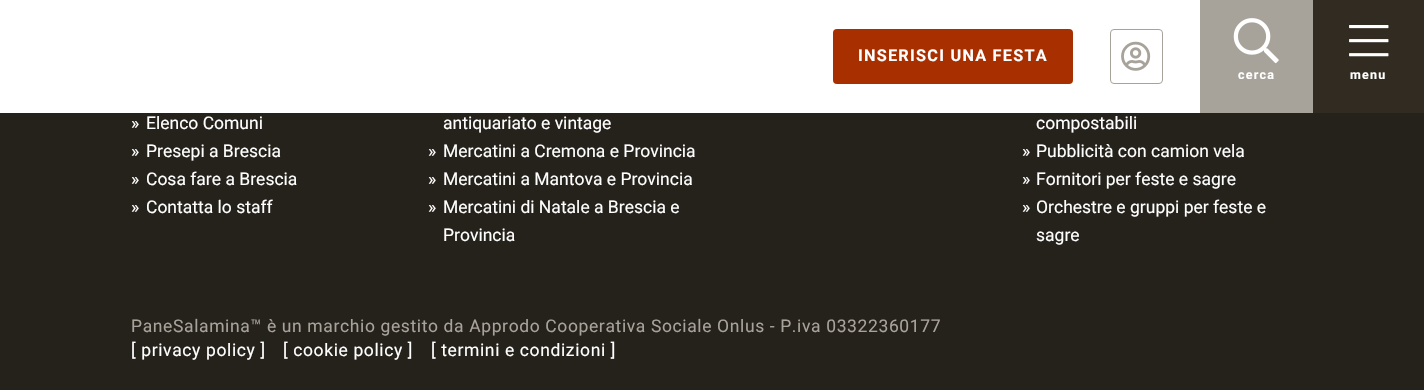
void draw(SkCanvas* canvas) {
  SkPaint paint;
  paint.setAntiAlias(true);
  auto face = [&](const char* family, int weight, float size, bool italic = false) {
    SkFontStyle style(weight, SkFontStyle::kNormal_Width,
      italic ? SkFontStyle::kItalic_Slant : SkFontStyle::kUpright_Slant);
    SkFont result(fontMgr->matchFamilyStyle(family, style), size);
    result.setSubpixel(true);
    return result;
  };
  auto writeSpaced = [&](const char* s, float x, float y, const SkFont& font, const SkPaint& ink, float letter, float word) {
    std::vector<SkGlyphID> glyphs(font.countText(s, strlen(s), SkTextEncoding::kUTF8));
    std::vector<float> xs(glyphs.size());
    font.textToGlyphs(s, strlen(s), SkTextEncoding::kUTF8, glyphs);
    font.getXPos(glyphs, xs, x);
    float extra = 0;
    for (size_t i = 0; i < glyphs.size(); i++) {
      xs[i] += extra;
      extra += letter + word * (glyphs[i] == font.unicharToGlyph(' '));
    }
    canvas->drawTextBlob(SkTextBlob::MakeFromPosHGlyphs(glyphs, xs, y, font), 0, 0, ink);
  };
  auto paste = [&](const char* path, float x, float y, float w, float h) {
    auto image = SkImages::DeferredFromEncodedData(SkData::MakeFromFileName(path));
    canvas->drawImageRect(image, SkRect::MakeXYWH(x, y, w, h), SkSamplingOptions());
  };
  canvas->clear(0xff25211b);
  paint.setColor(0xffffffff);
  canvas->drawRect(SkRect::MakeXYWH(0, 0, 1200, 113), paint);
  paint.setColor(0xffa82f00);
  canvas->drawRoundRect(SkRect::MakeXYWH(833, 29, 240, 55), 4, 4, paint);
  paint.setStroke(true);
  paint.setStrokeWidth(1);
  paint.setColor(0xffa7a29a);
  canvas->drawRoundRect(SkRect::MakeXYWH(1110.5f, 29.5f, 52, 54), 3.5f, 3.5f, paint);
  paste("img/1.png", 1121, 41, 30, 30);
  paint.setStroke(false);
  canvas->drawRect(SkRect::MakeXYWH(1200, 0, 113, 113), paint);
  paste("img/2.png", 1233, 18, 46, 46);
  paint.setColor(0xff322b22);
  canvas->drawRect(SkRect::MakeXYWH(1313, 0, 111, 113), paint);
  paste("img/3.png", 1349, 25, 40, 32);
  auto f0 = face("Roboto", 700, 16.25f);
  paint.setColor(0xffffffff);
  writeSpaced("INSERISCI UNA FESTA", 858, 61, f0, paint, 1.25f, 0);
  auto f1 = face("Roboto", 700, 12.5f);
  writeSpaced("cerca", 1238, 79, f1, paint, 1.25f, 0);
  writeSpaced("menu", 1350, 79, f1, paint, 1.25f, 0);
  auto f2 = face("Roboto", 400, 17.5f);
  {
    const struct { const char* s; float x, y; } items[] = {
      {"»", 131, 129},
      {"Elenco Comuni", 146, 129},
      {"»", 131, 157},
      {"Presepi a Brescia", 146, 157},
      {"»", 131, 185},
      {"Cosa fare a Brescia", 146, 185},
      {"»", 131, 213},
      {"Contatta lo staff", 146, 213},
      {"antiquariato e vintage", 443, 129},
      {"»", 428, 157},
      {"Mercatini a Cremona e Provincia", 443, 157},
      {"»", 428, 185},
      {"Mercatini a Mantova e Provincia", 443, 185},
      {"»", 428, 213},
      {"Mercatini di Natale a Brescia e", 443, 213},
      {"Provincia", 443, 241},
      {"compostabili", 1036, 129},
      {"»", 1022, 157},
      {"Pubblicità con camion vela", 1036, 157},
      {"»", 1022, 185},
      {"Fornitori per feste e sagre", 1036, 185},
      {"»", 1022, 213},
      {"Orchestre e gruppi per feste e", 1036, 213},
      {"sagre", 1036, 241},
    };
    for (auto [s, x, y] : items) {
      canvas->drawString(s, x, y, f2, paint);
    }
  }
  paint.setColor(0xffa7a29a);
  writeSpaced("PaneSalamina™ è un marchio gestito da Approdo Cooperativa Sociale Onlus - P.iva 03322360177", 131, 332, f2, paint, 0.62f, 0);
  paint.setColor(0xffffffff);
  {
    const struct { const char* s; float x, y; } items[] = {
      {"[ privacy policy ]", 131, 356},
      {"[ cookie policy ]", 283, 356},
      {"[ termini e condizioni ]", 431, 356},
    };
    for (auto [s, x, y] : items) {
      writeSpaced(s, x, y, f2, paint, 0.62f, 0);
    }
  }
}
